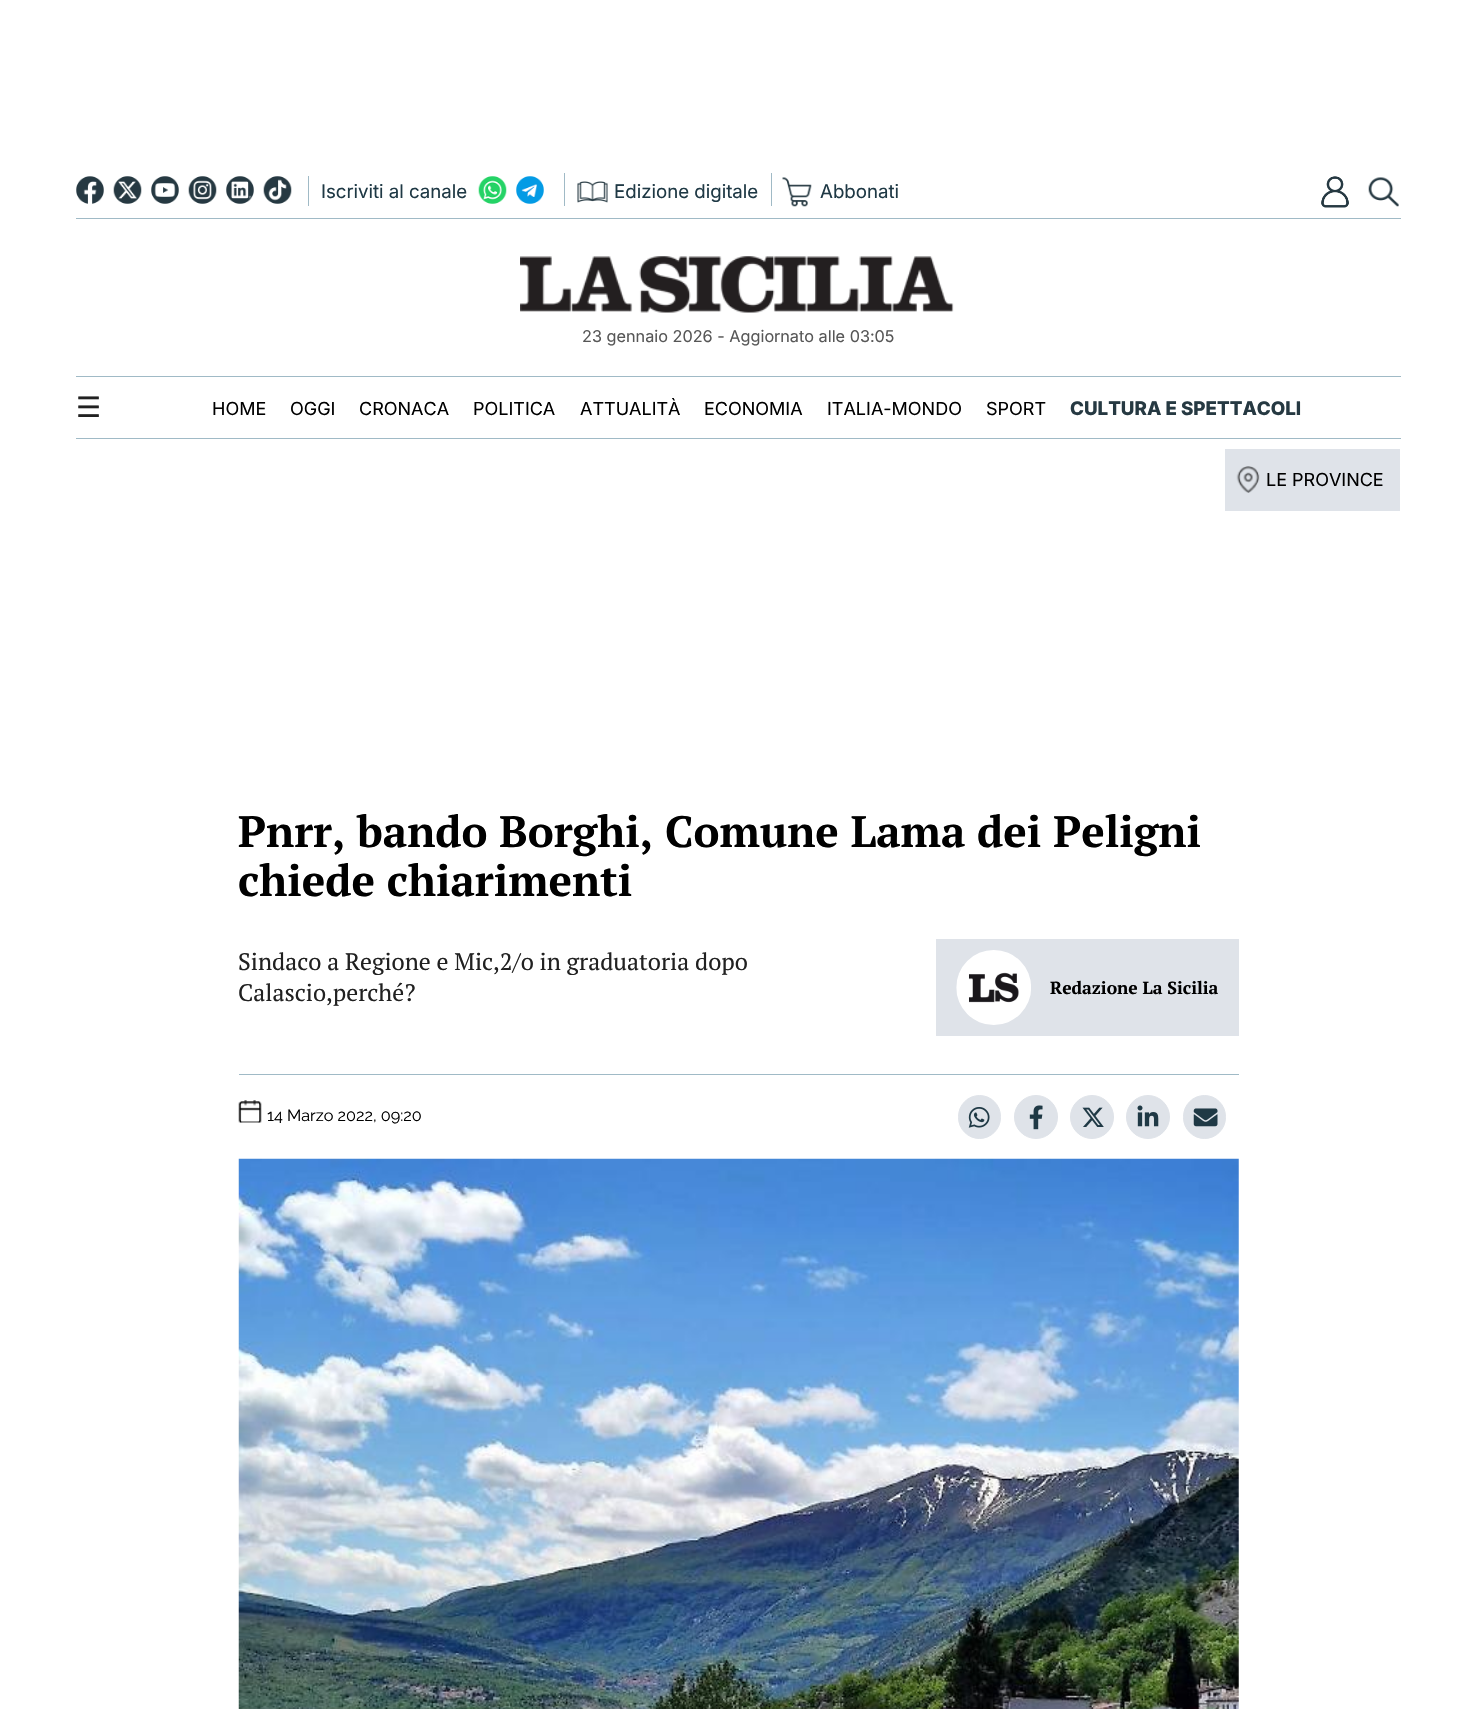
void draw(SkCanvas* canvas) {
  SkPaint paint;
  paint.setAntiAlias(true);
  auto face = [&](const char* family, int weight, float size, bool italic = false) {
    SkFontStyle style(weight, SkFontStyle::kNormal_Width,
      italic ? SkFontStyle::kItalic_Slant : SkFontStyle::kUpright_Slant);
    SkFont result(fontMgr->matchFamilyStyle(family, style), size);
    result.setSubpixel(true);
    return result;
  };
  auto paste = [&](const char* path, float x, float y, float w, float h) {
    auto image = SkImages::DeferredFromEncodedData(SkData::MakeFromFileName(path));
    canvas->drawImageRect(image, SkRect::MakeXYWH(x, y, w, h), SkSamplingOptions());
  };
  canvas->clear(0xffffffff);
  paint.setColor(0xffa0bac6);
  canvas->drawRect(SkRect::MakeXYWH(76, 218, 1325, 1), paint);
  paste("img/1.png", 76, 176, 28, 28);
  paste("img/2.png", 113, 176, 29, 28);
  paste("img/3.png", 151, 176, 28, 28);
  paste("img/4.png", 188, 176, 29, 28);
  paste("img/5.png", 226, 176, 28, 28);
  paste("img/6.png", 263, 176, 29, 28);
  canvas->drawRect(SkRect::MakeXYWH(308, 176, 1, 30), paint);
  paste("img/7.png", 478, 176, 29, 28);
  paste("img/8.png", 516, 176, 28, 28);
  canvas->drawRect(SkRect::MakeXYWH(771, 173, 1, 33), paint);
  canvas->drawRect(SkRect::MakeXYWH(564, 173, 1, 33), paint);
  paste("img/9.png", 577, 181, 31, 22);
  paste("img/10.png", 782, 177, 30, 30);
  paste("img/11.png", 1321, 176, 28, 32);
  paste("img/12.png", 1368, 177, 31, 30);
  paste("img/13.png", 520, 256, 434, 57);
  {
    const struct { float x, y, w, h; SkColor color; } items[] = {
      {76, 376, 1325, 1, 0xffa0bac6},
      {76, 438, 1325, 1, 0xffa0bac6},
      {1225, 449, 175, 62, 0xffdfe3e9},
    };
    for (auto [x, y, w, h, color] : items) {
      paint.setColor(color);
      canvas->drawRect(SkRect::MakeXYWH(x, y, w, h), paint);
    }
  }
  paste("img/14.png", 1236, 466, 24, 27);
  canvas->drawRect(SkRect::MakeXYWH(936, 939, 303, 97), paint);
  paste("img/15.png", 956, 950, 75, 75);
  paint.setColor(0xffa0bac6);
  canvas->drawRect(SkRect::MakeXYWH(239, 1074, 1000, 1), paint);
  paste("img/16.png", 238, 1100, 24, 23);
  paint.setColor(0xffdfe3e9);
  canvas->drawRoundRect(SkRect::MakeXYWH(958.5f, 1095.5f, 42, 43), 21, 21, paint);
  paint.setStroke(true);
  paint.setStrokeWidth(1);
  canvas->drawRoundRect(SkRect::MakeXYWH(958.5f, 1095.5f, 42, 43), 21, 21, paint);
  paste("img/17.png", 968, 1107, 22, 21);
  paint.setStroke(false);
  canvas->drawCircle(1036, 1117, 21.5f, paint);
  paint.setStroke(true);
  canvas->drawCircle(1036, 1117, 21.5f, paint);
  paste("img/18.png", 1029, 1105, 14, 25);
  paint.setStroke(false);
  canvas->drawCircle(1092, 1117, 21.5f, paint);
  paint.setStroke(true);
  canvas->drawCircle(1092, 1117, 21.5f, paint);
  paste("img/19.png", 1082, 1107, 22, 20);
  paint.setStroke(false);
  canvas->drawCircle(1148, 1117, 21.5f, paint);
  paint.setStroke(true);
  canvas->drawCircle(1148, 1117, 21.5f, paint);
  paste("img/20.png", 1137, 1105, 22, 22);
  paint.setStroke(false);
  canvas->drawRoundRect(SkRect::MakeXYWH(1183.5f, 1095.5f, 42, 43), 21, 21, paint);
  paint.setStroke(true);
  canvas->drawRoundRect(SkRect::MakeXYWH(1183.5f, 1095.5f, 42, 43), 21, 21, paint);
  paste("img/21.png", 1193, 1108, 25, 19);
  paste("img/22.png", 238, 1158, 1001, 551);
  auto f0 = face("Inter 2", 400, 18.75f);
  paint.setStroke(false);
  paint.setColor(0xff1f3945);
  {
    const struct { const char* s; float x, y; } items[] = {
      {"Iscriviti al canale", 321, 198},
      {"Edizione digitale", 614, 198},
      {"Abbonati", 820, 198},
    };
    for (auto [s, x, y] : items) {
      canvas->drawString(s, x, y, f0, paint);
    }
  }
  auto f1 = face("Inter", 400, 16.25f);
  paint.setColor(0xff575757);
  canvas->drawString("23 gennaio 2026 - Aggiornato alle 03:05", 582, 342, f1, paint);
  auto f2 = face("DejaVu Sans", 400, 28);
  paint.setColor(0xff212121);
  canvas->drawString("☰", 76, 417, f2, paint);
  auto f3 = face("Inter", 400, 18);
  paint.setColor(0xff000000);
  {
    const struct { const char* s; float x, y; } items[] = {
      {"HOME", 212, 415},
      {"OGGI", 290, 415},
      {"CRONACA", 359, 415},
      {"POLITICA", 473, 415},
      {"ATTUALITÀ", 580, 415},
      {"ECONOMIA", 704, 415},
      {"ITALIA-MONDO", 827, 415},
      {"SPORT", 986, 415},
    };
    for (auto [s, x, y] : items) {
      canvas->drawString(s, x, y, f3, paint);
    }
  }
  auto f4 = face("Inter", 800, 18.75f);
  paint.setColor(0xff263942);
  canvas->drawString("CULTURA E SPETTACOLI", 1070, 415, f4, paint);
  paint.setColor(0xff000000);
  canvas->drawString("LE PROVINCE", 1266, 486, f3, paint);
  auto f5 = face("PT Serif", 700, 43.75f);
  canvas->drawString("Pnrr, bando Borghi, Comune Lama dei Peligni", 238, 847, f5, paint);
  canvas->drawString("chiede chiarimenti", 238, 896, f5, paint);
  auto f6 = face("PT Serif", 400, 23.75f);
  paint.setColor(0xff212121);
  canvas->drawString("Sindaco a Regione e Mic,2/o in graduatoria dopo", 238, 970, f6, paint);
  canvas->drawString("Calascio,perché?", 238, 1001, f6, paint);
  auto f7 = face("PT Serif", 700, 17.5f);
  paint.setColor(0xff000000);
  canvas->drawString("Redazione La Sicilia", 1050, 994, f7, paint);
  auto f8 = face("Raleway", 400, 16.25f);
  canvas->drawString("14 Marzo 2022, 09:20", 267, 1121, f8, paint);
}
